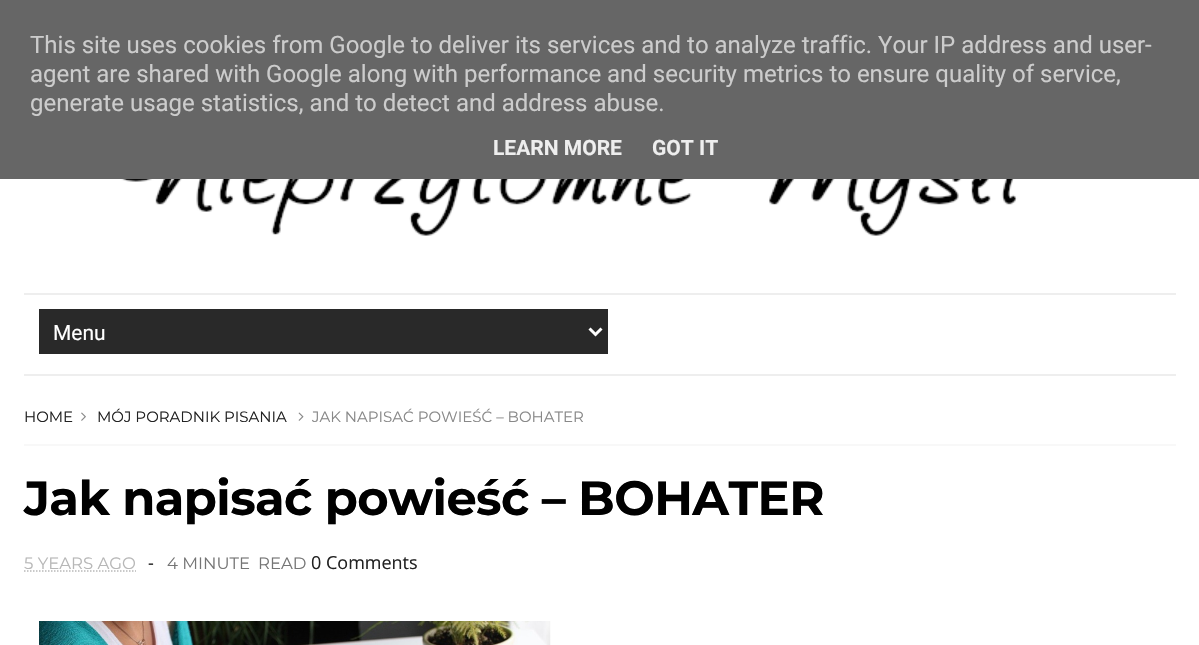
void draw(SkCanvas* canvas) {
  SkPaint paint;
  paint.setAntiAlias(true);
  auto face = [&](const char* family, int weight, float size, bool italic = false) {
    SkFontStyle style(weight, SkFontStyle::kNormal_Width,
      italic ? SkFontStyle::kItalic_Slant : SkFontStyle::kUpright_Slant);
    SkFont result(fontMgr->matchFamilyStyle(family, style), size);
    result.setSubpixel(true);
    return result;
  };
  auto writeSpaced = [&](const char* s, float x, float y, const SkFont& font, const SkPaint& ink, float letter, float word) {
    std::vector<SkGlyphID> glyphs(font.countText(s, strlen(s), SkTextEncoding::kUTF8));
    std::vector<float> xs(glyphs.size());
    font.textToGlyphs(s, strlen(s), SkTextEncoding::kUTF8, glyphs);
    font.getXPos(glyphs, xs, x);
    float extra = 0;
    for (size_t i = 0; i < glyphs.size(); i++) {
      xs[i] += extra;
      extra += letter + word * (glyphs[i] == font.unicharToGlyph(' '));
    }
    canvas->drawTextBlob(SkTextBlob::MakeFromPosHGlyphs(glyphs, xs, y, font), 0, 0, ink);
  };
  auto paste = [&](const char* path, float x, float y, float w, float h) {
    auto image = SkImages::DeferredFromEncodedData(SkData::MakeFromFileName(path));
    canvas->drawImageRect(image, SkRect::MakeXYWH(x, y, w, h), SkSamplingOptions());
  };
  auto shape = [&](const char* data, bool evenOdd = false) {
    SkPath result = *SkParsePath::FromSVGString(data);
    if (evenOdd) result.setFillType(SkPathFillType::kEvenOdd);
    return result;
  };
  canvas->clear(0xffffffff);
  paint.setColor(0xff666666);
  canvas->drawRect(SkRect::MakeXYWH(0, 0, 1199, 179), paint);
  paste("img/1.png", 109, 179, 920, 57);
  {
    const struct { float x, y, w, h; SkColor color; } items[] = {
      {24, 293, 1152, 2, 0xffeeeeee},
      {24, 374, 1152, 2, 0xffeeeeee},
      {39, 309, 569, 45, 0xff292929},
    };
    for (auto [x, y, w, h, color] : items) {
      paint.setColor(color);
      canvas->drawRect(SkRect::MakeXYWH(x, y, w, h), paint);
    }
  }
  paint.setStroke(true);
  paint.setStrokeWidth(3);
  paint.setColor(0xffffffff);
  canvas->drawPath(shape("M589.5 328.5L595.5 334.5L601.5 328.5"), paint);
  paste("img/2.png", 81, 412, 5, 9);
  paste("img/3.png", 298, 412, 6, 9);
  paint.setStroke(false);
  paint.setColor(0xfff8f8f8);
  canvas->drawRect(SkRect::MakeXYWH(24, 444, 1152, 2), paint);
  paint.setStroke(true);
  paint.setStrokeWidth(1.5f);
  paint.setColor(0xffb7b7b7);
  paint.setPathEffect(SkDashPathEffect::Make({{1.5f, 1.5f}}, 0));
  canvas->drawPath(shape("M24 571H136"), paint);
  paint.setPathEffect(nullptr);
  paste("img/4.png", 39, 621, 512, 24);
  auto f0 = face("Roboto", 400, 24);
  paint.setStroke(false);
  paint.setColor(0xffcccccc);
  {
    const struct { const char* s; float x, y; } items[] = {
      {"This site uses cookies from Google to deliver its services and to analyze traffic. Your IP address and user-", 30, 53},
      {"agent are shared with Google along with performance and security metrics to ensure quality of service,", 30, 82},
      {"generate usage statistics, and to detect and address abuse.", 30, 111},
    };
    for (auto [s, x, y] : items) {
      canvas->drawString(s, x, y, f0, paint);
    }
  }
  auto f1 = face("Roboto", 700, 21);
  paint.setColor(0xffeeeeee);
  canvas->drawString("LEARN MORE", 493, 155, f1, paint);
  canvas->drawString("GOT IT", 652, 155, f1, paint);
  auto f2 = face("Roboto", 400, 21);
  paint.setColor(0xffffffff);
  canvas->drawString("Menu", 53, 340, f2, paint);
  auto f3 = face("Montserrat", 400, 15);
  paint.setColor(0xff222222);
  canvas->drawString("HOME", 24, 422, f3, paint);
  canvas->drawString("MÓJ PORADNIK PISANIA", 97, 422, f3, paint);
  paint.setColor(0xff888888);
  canvas->drawString("JAK NAPISAĆ POWIEŚĆ – BOHATER", 312, 422, f3, paint);
  auto f4 = face("Montserrat", 700, 48);
  paint.setColor(0xff000000);
  writeSpaced("Jak napisać powieść – BOHATER", 24, 515, f4, paint, -0.6f, 0);
  auto f5 = face("Montserrat", 400, 16.5f);
  paint.setColor(0xffb7b7b7);
  canvas->drawString("5 YEARS AGO", 24, 569, f5, paint);
  auto f6 = face("Open Sans", 400, 18);
  paint.setColor(0xff222222);
  canvas->drawString("-", 148, 569, f6, paint);
  paint.setColor(0xff757575);
  canvas->drawString("4 MINUTE", 167, 569, f5, paint);
  canvas->drawString("READ", 258, 569, f5, paint);
  paint.setColor(0xff222222);
  canvas->drawString("0 Comments", 311, 569, f6, paint);
}
